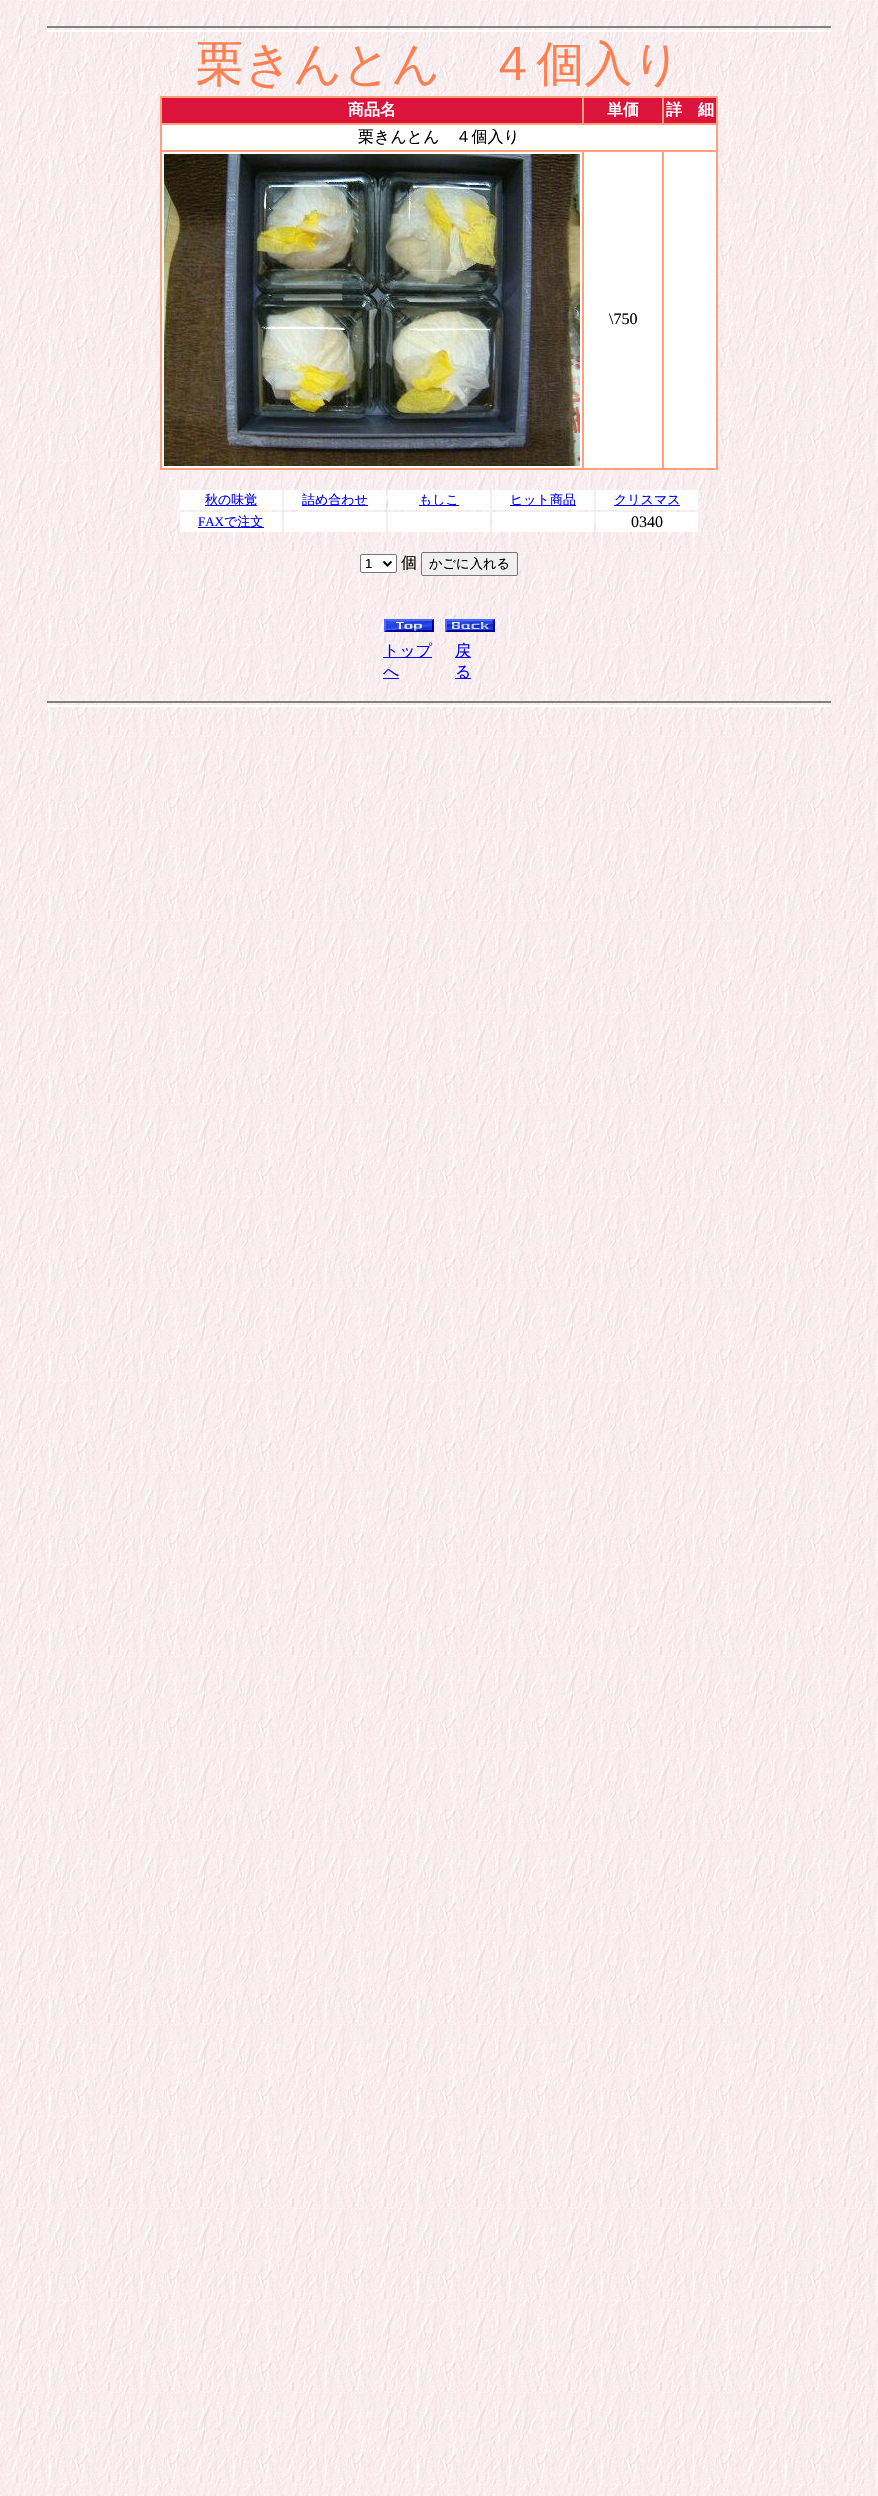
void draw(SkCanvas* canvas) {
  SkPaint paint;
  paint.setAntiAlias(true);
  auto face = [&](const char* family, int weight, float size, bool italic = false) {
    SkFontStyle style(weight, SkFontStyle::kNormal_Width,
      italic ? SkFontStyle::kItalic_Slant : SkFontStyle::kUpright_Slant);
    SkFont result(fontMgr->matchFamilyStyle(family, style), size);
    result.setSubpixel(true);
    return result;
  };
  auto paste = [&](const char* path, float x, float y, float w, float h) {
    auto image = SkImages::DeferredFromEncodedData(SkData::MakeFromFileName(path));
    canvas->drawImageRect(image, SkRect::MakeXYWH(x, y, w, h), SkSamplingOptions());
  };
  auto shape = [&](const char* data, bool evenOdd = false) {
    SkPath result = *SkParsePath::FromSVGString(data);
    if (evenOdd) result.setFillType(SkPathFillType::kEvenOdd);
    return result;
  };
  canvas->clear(0xffffffff);
  paste("img/1.png", 0, 0, 878, 2496);
  paste("img/2.png", 47, 26, 784, 6);
  {
    const struct { float x, y, w, h; SkColor color; } items[] = {
      {160, 96, 558, 374, 0xffffa07a},
      {162, 98, 420, 25, 0xffdc143c},
      {584, 98, 78, 25, 0xffdc143c},
      {664, 98, 52, 25, 0xffdc143c},
      {162, 125, 554, 25, 0xffffffff},
      {162, 152, 420, 316, 0xffffffff},
    };
    for (auto [x, y, w, h, color] : items) {
      paint.setColor(color);
      canvas->drawRect(SkRect::MakeXYWH(x, y, w, h), paint);
    }
  }
  paste("img/3.png", 164, 154, 416, 312);
  {
    const struct { float x, y, w, h; SkColor color; } items[] = {
      {584, 152, 78, 316, 0xffffffff},
      {664, 152, 52, 316, 0xffffffff},
      {180, 490, 102, 20, 0xffffffff},
      {205, 505, 52, 1, 0xff0000ff},
      {284, 490, 102, 20, 0xffffffff},
      {302, 505, 66, 1, 0xff0000ff},
      {388, 490, 102, 20, 0xffffffff},
      {419, 505, 40, 1, 0xff0000ff},
      {492, 490, 102, 20, 0xffffffff},
      {510, 505, 66, 1, 0xff0000ff},
      {596, 490, 102, 20, 0xffffffff},
      {614, 505, 66, 1, 0xff0000ff},
      {180, 512, 102, 20, 0xffffffff},
      {198, 527, 66, 1, 0xff0000ff},
      {284, 512, 102, 20, 0xffffffff},
      {388, 512, 102, 20, 0xffffffff},
      {492, 512, 102, 20, 0xffffffff},
      {596, 512, 102, 20, 0xffffffff},
    };
    for (auto [x, y, w, h, color] : items) {
      paint.setColor(color);
      canvas->drawRect(SkRect::MakeXYWH(x, y, w, h), paint);
    }
  }
  canvas->drawRoundRect(SkRect::MakeXYWH(360.5f, 554.5f, 36, 18), 1.5f, 1.5f, paint);
  paint.setStroke(true);
  paint.setStrokeWidth(1);
  paint.setColor(0xff767676);
  canvas->drawRoundRect(SkRect::MakeXYWH(360.5f, 554.5f, 36, 18), 1.5f, 1.5f, paint);
  paint.setStrokeWidth(2);
  paint.setColor(0xff000000);
  canvas->drawPath(shape("M383.5 561.5L387.5 565.5L391.5 561.5"), paint);
  paint.setStroke(false);
  paint.setColor(0xffefefef);
  canvas->drawRoundRect(SkRect::MakeXYWH(421.5f, 552.5f, 96, 23), 1.5f, 1.5f, paint);
  paint.setStroke(true);
  paint.setStrokeWidth(1);
  paint.setColor(0xff767676);
  canvas->drawRoundRect(SkRect::MakeXYWH(421.5f, 552.5f, 96, 23), 1.5f, 1.5f, paint);
  paste("img/4.png", 384, 619, 50, 13);
  paint.setStroke(false);
  paint.setColor(0xff0000ff);
  canvas->drawRect(SkRect::MakeXYWH(383, 657, 49, 1), paint);
  canvas->drawRect(SkRect::MakeXYWH(383, 678, 16, 1), paint);
  paste("img/5.png", 445, 619, 50, 13);
  canvas->drawRect(SkRect::MakeXYWH(455, 657, 16, 1), paint);
  canvas->drawRect(SkRect::MakeXYWH(455, 678, 16, 1), paint);
  paste("img/6.png", 47, 701, 784, 6);
  auto f0 = face("WenQuanYi Zen Hei", 500, 48);
  paint.setColor(0xffff7f50);
  canvas->drawString("栗きんとん　４個入り", 196, 80, f0, paint);
  auto f1 = face("WenQuanYi Zen Hei", 700, 16);
  paint.setColor(0xffffffff);
  {
    const struct { const char* s; float x, y; } items[] = {
      {"商品名", 348, 115},
      {"単価", 607, 115},
      {"詳　細", 666, 115},
    };
    for (auto [s, x, y] : items) {
      canvas->drawString(s, x, y, f1, paint);
    }
  }
  auto f2 = face("WenQuanYi Zen Hei", 500, 16);
  paint.setColor(0xff000000);
  canvas->drawString("栗きんとん　４個入り", 358, 142, f2, paint);
  auto f3 = face("Liberation Serif", 400, 16);
  canvas->drawString("\\750", 609, 324, f3, paint);
  auto f4 = face("WenQuanYi Zen Hei", 500, 13);
  paint.setColor(0xff0000ff);
  {
    const struct { const char* s; float x, y; } items[] = {
      {"秋の味覚", 205, 504},
      {"詰め合わせ", 302, 504},
      {"もしこ", 419, 504},
      {"ヒット商品", 510, 504},
      {"クリスマス", 614, 504},
    };
    for (auto [s, x, y] : items) {
      canvas->drawString(s, x, y, f4, paint);
    }
  }
  auto f5 = face("Liberation Serif", 400, 13);
  canvas->drawString("FAX", 198, 526, f5, paint);
  canvas->drawString("で注文", 224, 526, f4, paint);
  paint.setColor(0xff000000);
  canvas->drawString("0340", 631, 527, f3, paint);
  auto f6 = face("Liberation Sans", 400, 13.25f);
  canvas->drawString("1", 365, 568, f6, paint);
  canvas->drawString("個", 401, 568, f2, paint);
  auto f7 = face("WenQuanYi Zen Hei", 500, 13.25f);
  canvas->drawString("かごに入れる", 429, 568, f7, paint);
  paint.setColor(0xff0000ff);
  {
    const struct { const char* s; float x, y; } items[] = {
      {"トップ", 383, 656},
      {"へ", 383, 677},
      {"戻", 455, 656},
      {"る", 455, 677},
    };
    for (auto [s, x, y] : items) {
      canvas->drawString(s, x, y, f2, paint);
    }
  }
}
